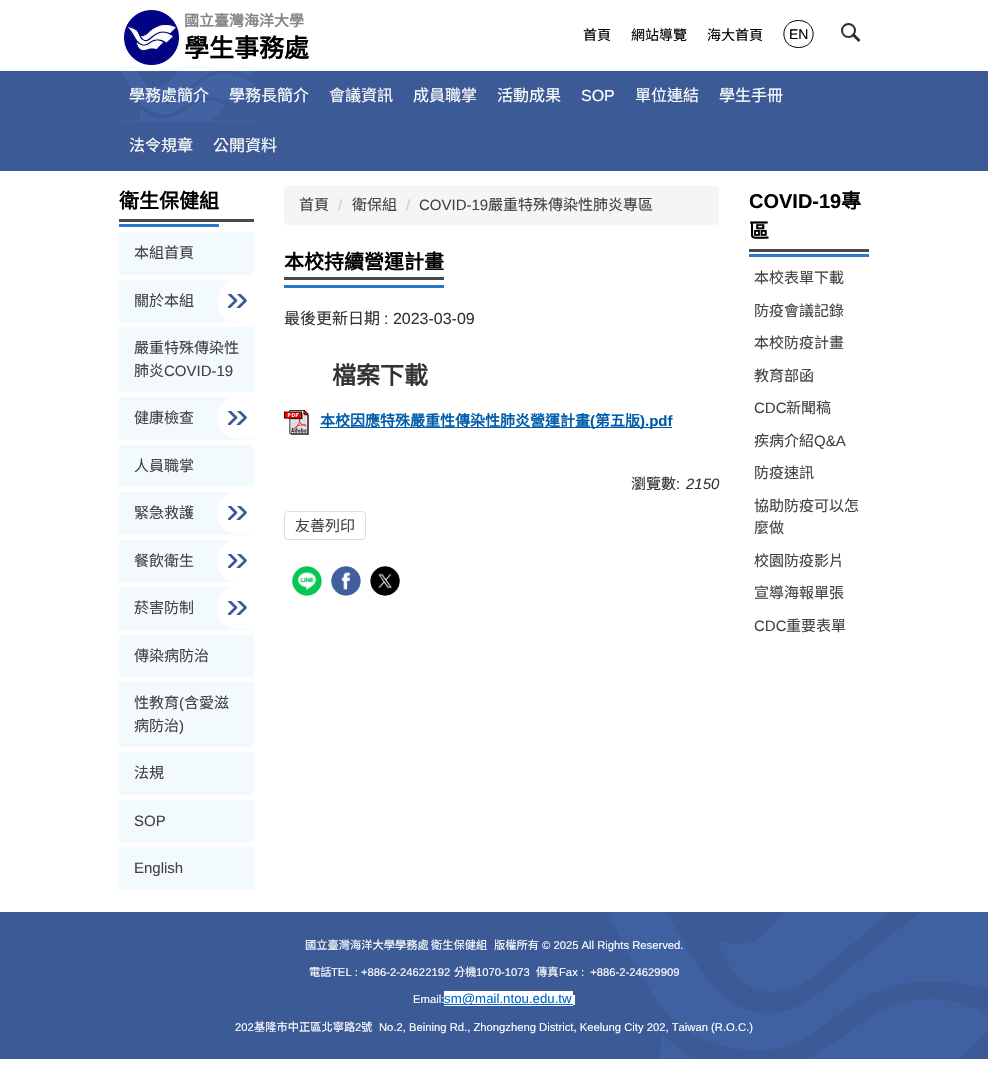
void draw(SkCanvas* canvas) {
  SkPaint paint;
  paint.setAntiAlias(true);
  auto face = [&](const char* family, int weight, float size, bool italic = false) {
    SkFontStyle style(weight, SkFontStyle::kNormal_Width,
      italic ? SkFontStyle::kItalic_Slant : SkFontStyle::kUpright_Slant);
    SkFont result(fontMgr->matchFamilyStyle(family, style), size);
    result.setSubpixel(true);
    return result;
  };
  auto paste = [&](const char* path, float x, float y, float w, float h) {
    auto image = SkImages::DeferredFromEncodedData(SkData::MakeFromFileName(path));
    canvas->drawImageRect(image, SkRect::MakeXYWH(x, y, w, h), SkSamplingOptions());
  };
  auto shape = [&](const char* data, bool evenOdd = false) {
    SkPath result = *SkParsePath::FromSVGString(data);
    if (evenOdd) result.setFillType(SkPathFillType::kEvenOdd);
    return result;
  };
  canvas->clear(0xffffffff);
  paste("img/1.png", 124, 10, 55, 55);
  paint.setStroke(true);
  paint.setStrokeWidth(2);
  paint.setColor(0xff2c2c2c);
  canvas->drawCircle(848.5f, 30.5f, 6.5f, paint);
  paint.setStroke(false);
  canvas->drawPath(shape("M853.5 33L860.5 40L858.5 42L851.5 35Z"), paint);
  paint.setStroke(true);
  paint.setStrokeWidth(1);
  paint.setColor(0xff000000);
  canvas->drawPath(shape("M798.5 20.5C818 20.5 818 47.5 798.5 47.5C779 47.5 779 20.5 798.5 20.5Z"), paint);
  paint.setStroke(false);
  paint.setColor(0xff3c5a96);
  canvas->drawRect(SkRect::MakeXYWH(0, 71, 988, 100), paint);
  paste("img/2.png", 119, 71, 140, 51);
  {
    const struct { float x, y, w, h; SkColor color; } items[] = {
      {119, 224, 100, 3, 0xff2878c8},
      {119, 219, 135, 3, 0xff494949},
      {119, 232, 135, 43, 0xfff2fafd},
      {119, 280, 119, 42, 0xfff2fafd},
    };
    for (auto [x, y, w, h, color] : items) {
      paint.setColor(color);
      canvas->drawRect(SkRect::MakeXYWH(x, y, w, h), paint);
    }
  }
  paint.setColor(0xffffffff);
  canvas->drawPath(shape("M236 280H254V322C247 322 235 323 228 320C211 312 215 280 236 280Z"), paint);
  paste("img/3.png", 228, 294, 19, 14);
  paint.setColor(0xfff2fafd);
  canvas->drawRect(SkRect::MakeXYWH(119, 327, 135, 65), paint);
  canvas->drawRect(SkRect::MakeXYWH(119, 397, 135, 43), paint);
  paint.setColor(0xffffffff);
  canvas->drawPath(shape("M236 397H254V439C247 439 235 440 228 437C211 429 215 397 236 397Z"), paint);
  paste("img/3.png", 228, 411, 19, 14);
  paint.setColor(0xfff2fafd);
  canvas->drawRect(SkRect::MakeXYWH(119, 445, 135, 42), paint);
  canvas->drawRect(SkRect::MakeXYWH(119, 492, 135, 43), paint);
  paint.setColor(0xffffffff);
  canvas->drawPath(shape("M236 492H254V534C247 534 235 535 228 532C211 524 215 492 236 492Z"), paint);
  paste("img/3.png", 228, 506, 19, 14);
  paint.setColor(0xfff2fafd);
  canvas->drawRect(SkRect::MakeXYWH(119, 540, 119, 42), paint);
  paint.setColor(0xffffffff);
  canvas->drawPath(shape("M236 540H254V582C247 582 235 583 228 580C211 572 215 540 236 540Z"), paint);
  paste("img/3.png", 228, 554, 19, 14);
  paint.setColor(0xfff2fafd);
  canvas->drawRect(SkRect::MakeXYWH(119, 587, 135, 43), paint);
  paint.setColor(0xffffffff);
  canvas->drawPath(shape("M236 587H254V629C247 629 235 630 228 627C211 619 215 587 236 587Z"), paint);
  paste("img/3.png", 228, 601, 19, 14);
  {
    const struct { float x, y, w, h; SkColor color; } items[] = {
      {119, 635, 135, 42, 0xfff2fafd},
      {119, 682, 135, 65, 0xfff2fafd},
      {119, 752, 135, 43, 0xfff2fafd},
      {119, 800, 135, 42, 0xfff2fafd},
      {119, 847, 135, 43, 0xfff2fafd},
    };
    for (auto [x, y, w, h, color] : items) {
      paint.setColor(color);
      canvas->drawRect(SkRect::MakeXYWH(x, y, w, h), paint);
    }
  }
  paint.setColor(0xfff5f5f5);
  canvas->drawRoundRect(SkRect::MakeXYWH(284, 186, 435, 39), 4, 4, paint);
  paint.setColor(0xff2878c8);
  canvas->drawRect(SkRect::MakeXYWH(284, 285, 160, 3), paint);
  paint.setColor(0xff494949);
  canvas->drawRect(SkRect::MakeXYWH(284, 277, 160, 3), paint);
  paste("img/4.png", 284, 410, 25, 25);
  paint.setColor(0xff005baa);
  canvas->drawRect(SkRect::MakeXYWH(320, 427, 352, 1), paint);
  paint.setStroke(true);
  paint.setColor(0xffdddddd);
  canvas->drawRoundRect(SkRect::MakeXYWH(284.5f, 511.5f, 81, 28), 3.5f, 3.5f, paint);
  paste("img/5.png", 292, 566, 30, 30);
  paste("img/6.png", 331, 566, 30, 30);
  paste("img/7.png", 370, 566, 30, 30);
  paint.setStroke(false);
  {
    const struct { float x, y, w, h; SkColor color; } items[] = {
      {749, 254, 120, 3, 0xff2878c8},
      {749, 249, 120, 3, 0xff494949},
      {0, 912, 988, 147, 0xff3c5a96},
    };
    for (auto [x, y, w, h, color] : items) {
      paint.setColor(color);
      canvas->drawRect(SkRect::MakeXYWH(x, y, w, h), paint);
    }
  }
  paste("img/8.png", 607, 912, 381, 147);
  {
    const struct { float x, y, w, h; SkColor color; } items[] = {
      {444, 991, 129, 15, 0xffffffff},
      {444, 1004, 129, 1, 0xff0066cc},
      {573, 995, 2, 10, 0xffffffff},
    };
    for (auto [x, y, w, h, color] : items) {
      paint.setColor(color);
      canvas->drawRect(SkRect::MakeXYWH(x, y, w, h), paint);
    }
  }
  auto f0 = face("Noto Sans CJK TC", 700, 15);
  paint.setColor(0xff858585);
  canvas->drawString("國立臺灣海洋大學", 184, 26, f0, paint);
  auto f1 = face("Noto Sans CJK TC", 700, 25);
  paint.setColor(0xff000000);
  canvas->drawString("學生事務處", 184, 57, f1, paint);
  auto f2 = face("Noto Sans CJK TC", 400, 14);
  {
    const struct { const char* s; float x, y; } items[] = {
      {"首頁", 583, 40},
      {"網站導覽", 631, 40},
      {"海大首頁", 707, 40},
    };
    for (auto [s, x, y] : items) {
      canvas->drawString(s, x, y, f2, paint);
    }
  }
  auto f3 = face("Liberation Sans", 400, 14);
  canvas->drawString("EN", 789, 39, f3, paint);
  auto f4 = face("Noto Sans CJK TC", 400, 16);
  paint.setColor(0xffffffff);
  {
    const struct { const char* s; float x, y; } items[] = {
      {"學務處簡介", 129, 101},
      {"學務長簡介", 229, 101},
      {"會議資訊", 329, 101},
      {"成員職掌", 413, 101},
      {"活動成果", 497, 101},
    };
    for (auto [s, x, y] : items) {
      canvas->drawString(s, x, y, f4, paint);
    }
  }
  auto f5 = face("Liberation Sans", 400, 16);
  canvas->drawString("SOP", 581, 101, f5, paint);
  {
    const struct { const char* s; float x, y; } items[] = {
      {"單位連結", 635, 101},
      {"學生手冊", 719, 101},
      {"法令規章", 129, 151},
      {"公開資料", 213, 151},
    };
    for (auto [s, x, y] : items) {
      canvas->drawString(s, x, y, f4, paint);
    }
  }
  auto f6 = face("Noto Sans CJK TC", 700, 20);
  paint.setColor(0xff000000);
  canvas->drawString("衛生保健組", 119, 208, f6, paint);
  auto f7 = face("Noto Sans CJK TC", 400, 15);
  paint.setColor(0xff434343);
  {
    const struct { const char* s; float x, y; } items[] = {
      {"本組首頁", 134, 258},
      {"關於本組", 134, 306},
      {"嚴重特殊傳染性", 134, 353},
      {"肺炎", 134, 376},
    };
    for (auto [s, x, y] : items) {
      canvas->drawString(s, x, y, f7, paint);
    }
  }
  auto f8 = face("Liberation Sans", 400, 15);
  canvas->drawString("COVID-19", 164, 376, f8, paint);
  {
    const struct { const char* s; float x, y; } items[] = {
      {"健康檢查", 134, 423},
      {"人員職掌", 134, 471},
      {"緊急救護", 134, 518},
      {"餐飲衛生", 134, 566},
      {"菸害防制", 134, 613},
      {"傳染病防治", 134, 661},
      {"性教育", 134, 708},
    };
    for (auto [s, x, y] : items) {
      canvas->drawString(s, x, y, f7, paint);
    }
  }
  canvas->drawString("(", 179, 708, f8, paint);
  canvas->drawString("含愛滋", 184, 708, f7, paint);
  canvas->drawString("病防治", 134, 731, f7, paint);
  canvas->drawString(")", 179, 731, f8, paint);
  canvas->drawString("法規", 134, 778, f7, paint);
  canvas->drawString("SOP", 134, 826, f8, paint);
  canvas->drawString("English", 134, 873, f8, paint);
  canvas->drawString("首頁", 299, 210, f7, paint);
  paint.setColor(0xffcccccc);
  canvas->drawString("/", 338, 210, f8, paint);
  paint.setColor(0xff434343);
  canvas->drawString("衛保組", 352, 210, f7, paint);
  paint.setColor(0xffcccccc);
  canvas->drawString("/", 406, 210, f8, paint);
  paint.setColor(0xff434343);
  canvas->drawString("COVID-19", 419, 210, f8, paint);
  canvas->drawString("嚴重特殊傳染性肺炎專區", 488, 210, f7, paint);
  paint.setColor(0xff000000);
  canvas->drawString("本校持續營運計畫", 284, 269, f6, paint);
  paint.setColor(0xff333333);
  canvas->drawString("最後更新日期", 284, 324, f4, paint);
  canvas->drawString(": 2023-03-09", 384, 324, f5, paint);
  auto f9 = face("Noto Sans CJK TC", 700, 24);
  canvas->drawString("檔案下載", 332, 384, f9, paint);
  paint.setColor(0xff005baa);
  canvas->drawString("本校因應特殊嚴重性傳染性肺炎營運計畫", 320, 426, f0, paint);
  auto f10 = face("Liberation Sans", 700, 15);
  canvas->drawString("(", 590, 426, f10, paint);
  canvas->drawString("第五版", 595, 426, f0, paint);
  canvas->drawString(").pdf", 640, 426, f10, paint);
  paint.setColor(0xff333333);
  canvas->drawString("瀏覽數", 631, 489, f7, paint);
  canvas->drawString(":", 676, 489, f8, paint);
  auto f11 = face("Liberation Sans", 400, 15, true);
  canvas->drawString("2150", 686, 489, f11, paint);
  paint.setColor(0xff434343);
  canvas->drawString("友善列印", 295, 531, f7, paint);
  auto f12 = face("Liberation Sans", 700, 20);
  paint.setColor(0xff000000);
  canvas->drawString("COVID-19", 749, 208, f12, paint);
  canvas->drawString("專", 841, 208, f6, paint);
  canvas->drawString("區", 749, 238, f6, paint);
  paint.setColor(0xff434343);
  {
    const struct { const char* s; float x, y; } items[] = {
      {"本校表單下載", 754, 283},
      {"防疫會議記錄", 754, 316},
      {"本校防疫計畫", 754, 348},
      {"教育部函", 754, 381},
    };
    for (auto [s, x, y] : items) {
      canvas->drawString(s, x, y, f7, paint);
    }
  }
  canvas->drawString("CDC", 754, 413, f8, paint);
  canvas->drawString("新聞稿", 786, 413, f7, paint);
  canvas->drawString("疾病介紹", 754, 446, f7, paint);
  canvas->drawString("Q&A", 814, 446, f8, paint);
  {
    const struct { const char* s; float x, y; } items[] = {
      {"防疫速訊", 754, 478},
      {"協助防疫可以怎", 754, 511},
      {"麼做", 754, 533},
      {"校園防疫影片", 754, 566},
      {"宣導海報單張", 754, 598},
    };
    for (auto [s, x, y] : items) {
      canvas->drawString(s, x, y, f7, paint);
    }
  }
  canvas->drawString("CDC", 754, 631, f8, paint);
  canvas->drawString("重要表單", 786, 631, f7, paint);
  auto f13 = face("Noto Sans CJK TC", 400, 11.25f);
  paint.setColor(0xffffffff);
  {
    const struct { const char* s; float x, y; } items[] = {
      {"國立臺灣海洋大學學務處", 305, 949},
      {"衛生保健組", 431, 949},
      {"版權所有", 494, 949},
    };
    for (auto [s, x, y] : items) {
      canvas->drawString(s, x, y, f13, paint);
    }
  }
  auto f14 = face("Liberation Sans", 400, 11.25f);
  canvas->drawString("© 2025 All Rights Reserved.", 542, 949, f14, paint);
  canvas->drawString("電話", 309, 976, f13, paint);
  canvas->drawString("TEL : +886-2-24622192", 331, 976, f14, paint);
  canvas->drawString("分機", 454, 976, f13, paint);
  canvas->drawString("1070-1073", 476, 976, f14, paint);
  canvas->drawString("傳真", 536, 976, f13, paint);
  canvas->drawString("Fax :  +886-2-24629909", 559, 976, f14, paint);
  canvas->drawString("Email:", 413, 1003, f14, paint);
  auto f15 = face("Liberation Sans", 400, 13.25f);
  paint.setColor(0xff0066cc);
  canvas->drawString("sm@mail.ntou.edu.tw", 444, 1003, f15, paint);
  paint.setColor(0xffffffff);
  canvas->drawString("202", 235, 1031, f14, paint);
  canvas->drawString("基隆市中正區北寧路", 254, 1031, f13, paint);
  canvas->drawString("2", 355, 1031, f14, paint);
  canvas->drawString("號", 361, 1031, f13, paint);
  canvas->drawString("No.2, Beining Rd., Zhongzheng District, Keelung City 202, Taiwan (R.O.C.)", 379, 1031, f14, paint);
}
